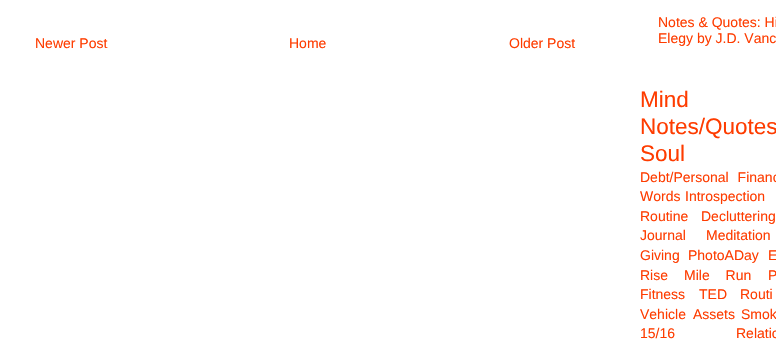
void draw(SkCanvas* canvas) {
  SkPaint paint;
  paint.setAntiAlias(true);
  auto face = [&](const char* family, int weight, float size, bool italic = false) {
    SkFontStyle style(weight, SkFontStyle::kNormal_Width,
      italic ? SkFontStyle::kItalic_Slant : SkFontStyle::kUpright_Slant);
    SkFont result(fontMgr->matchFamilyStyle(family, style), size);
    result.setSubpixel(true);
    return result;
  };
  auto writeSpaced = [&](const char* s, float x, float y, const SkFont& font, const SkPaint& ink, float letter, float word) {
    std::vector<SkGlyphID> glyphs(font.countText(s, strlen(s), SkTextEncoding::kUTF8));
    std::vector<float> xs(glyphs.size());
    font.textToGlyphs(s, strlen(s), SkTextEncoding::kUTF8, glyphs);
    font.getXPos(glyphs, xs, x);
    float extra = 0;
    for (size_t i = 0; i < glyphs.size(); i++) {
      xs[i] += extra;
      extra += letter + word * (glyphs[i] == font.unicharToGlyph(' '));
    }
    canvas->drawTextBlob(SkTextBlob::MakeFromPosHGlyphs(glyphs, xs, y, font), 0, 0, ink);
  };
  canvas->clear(0xffffffff);
  auto f0 = face("Liberation Sans", 400, 14);
  paint.setColor(0xfffe3c00);
  {
    const struct { const char* s; float x, y; } items[] = {
      {"Newer Post", 35, 48},
      {"Home", 289, 48},
      {"Older Post", 509, 48},
      {"Notes & Quotes: Hi", 658, 27},
      {"Elegy by J.D. Vanc", 658, 43},
    };
    for (auto [s, x, y] : items) {
      canvas->drawString(s, x, y, f0, paint);
    }
  }
  auto f1 = face("Liberation Sans", 400, 22.5f);
  {
    const struct { const char* s; float x, y; } items[] = {
      {"Mind", 640, 107},
      {"Notes/Quotes", 640, 134},
      {"Soul", 640, 161},
    };
    for (auto [s, x, y] : items) {
      canvas->drawString(s, x, y, f1, paint);
    }
  }
  writeSpaced("Debt/Personal Financ", 640, 182, f0, paint, 0, 5);
  {
    const struct { const char* s; float x, y; } items[] = {
      {"Words", 640, 201},
      {"Introspection", 685, 201},
      {"Routine", 640, 221},
      {"Decluttering", 701, 221},
      {"Journal", 640, 240},
      {"Meditation", 706, 240},
      {"Giving", 640, 260},
      {"PhotoADay", 688, 260},
    };
    for (auto [s, x, y] : items) {
      canvas->drawString(s, x, y, f0, paint);
    }
  }
  writeSpaced("E", 768, 260, f0, paint, 0, 5);
  canvas->drawString("Rise", 640, 280, f0, paint);
  writeSpaced("Mile Run", 684, 280, f0, paint, 0, 12);
  {
    const struct { const char* s; float x, y; } items[] = {
      {"P", 768, 280},
      {"Fitness", 640, 299},
      {"TED", 699, 299},
      {"Routi", 740, 299},
      {"Vehicle", 640, 319},
      {"Assets", 693, 319},
    };
    for (auto [s, x, y] : items) {
      canvas->drawString(s, x, y, f0, paint);
    }
  }
  writeSpaced("Smok", 741, 319, f0, paint, 0, 3);
  canvas->drawString("15/16", 640, 338, f0, paint);
  canvas->drawString("Relatio", 736, 338, f0, paint);
}
